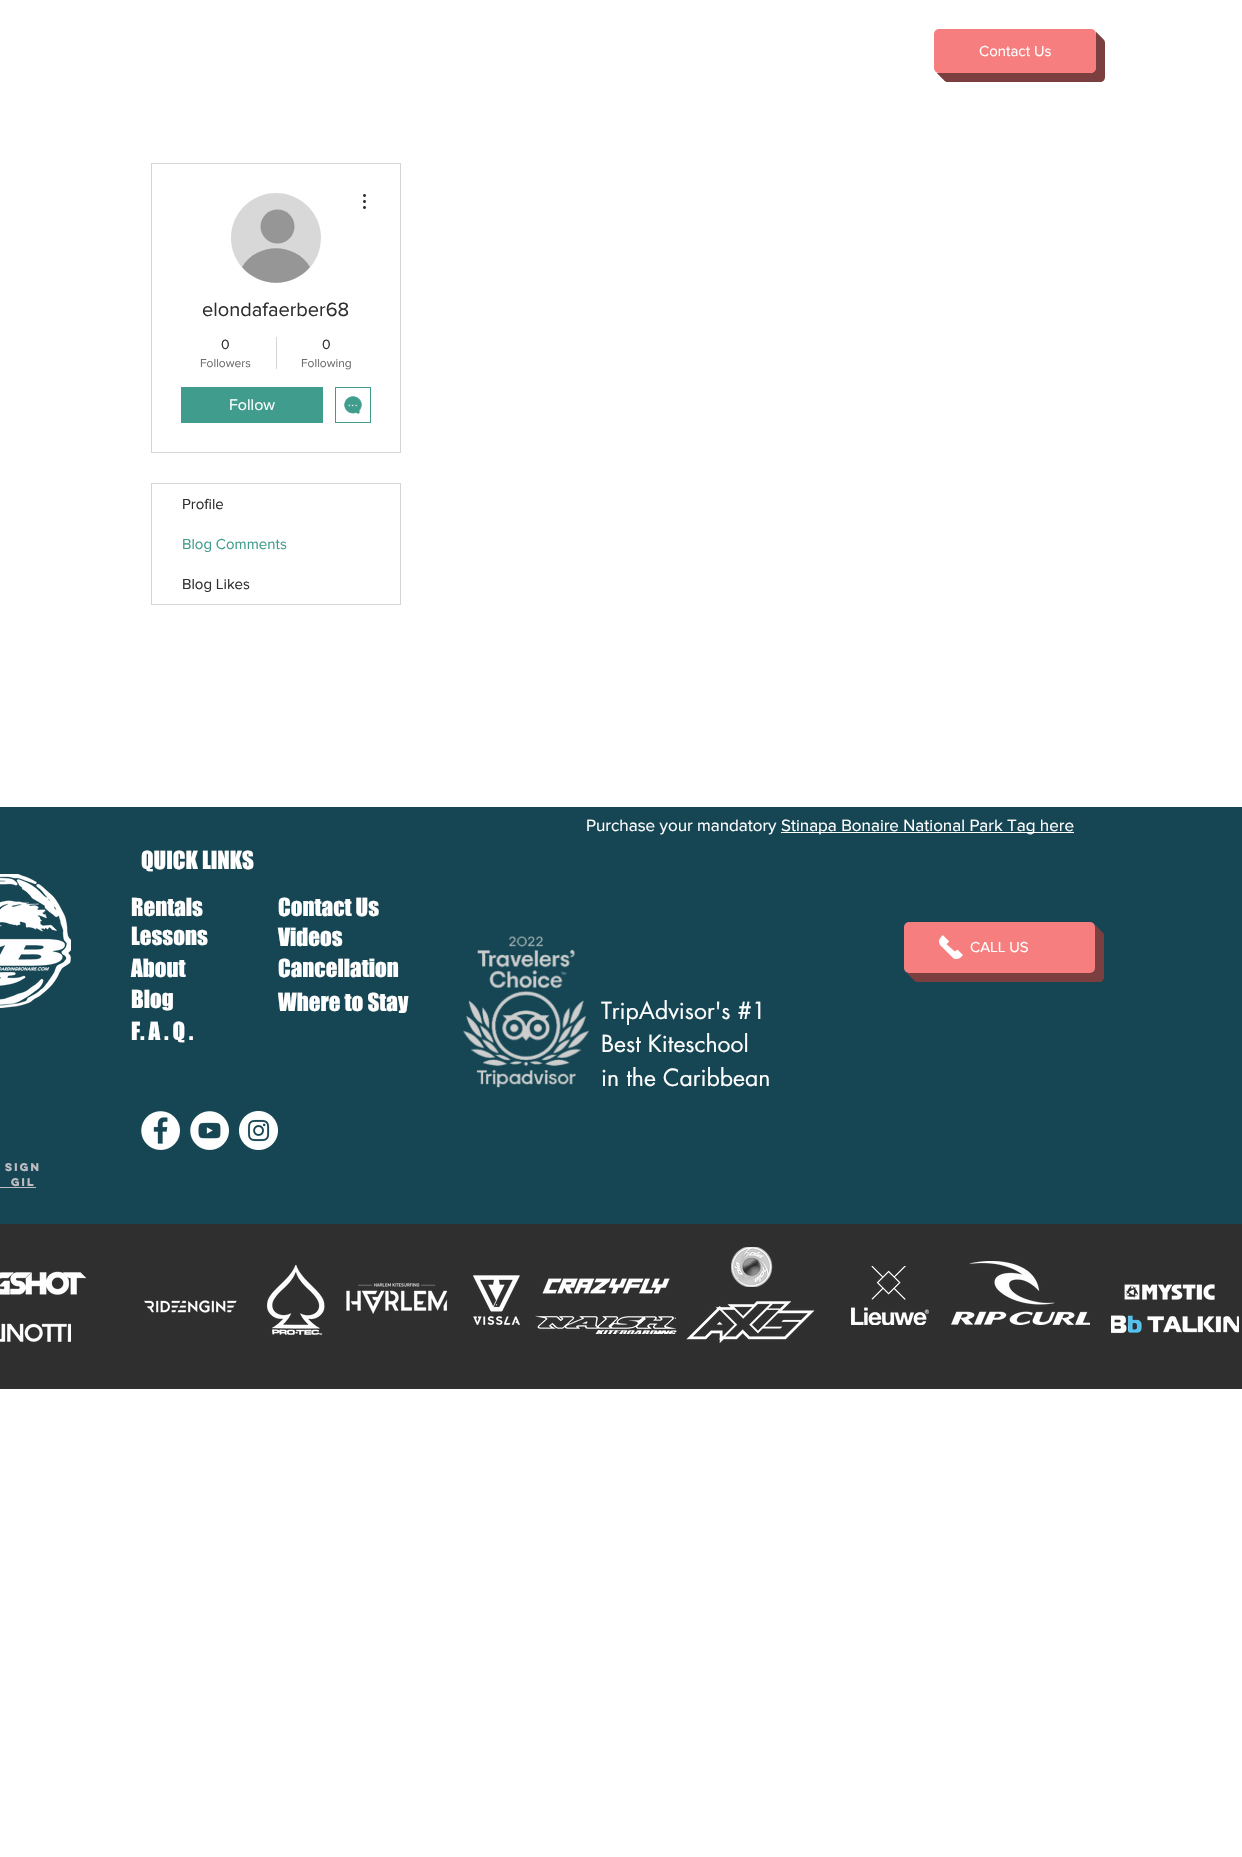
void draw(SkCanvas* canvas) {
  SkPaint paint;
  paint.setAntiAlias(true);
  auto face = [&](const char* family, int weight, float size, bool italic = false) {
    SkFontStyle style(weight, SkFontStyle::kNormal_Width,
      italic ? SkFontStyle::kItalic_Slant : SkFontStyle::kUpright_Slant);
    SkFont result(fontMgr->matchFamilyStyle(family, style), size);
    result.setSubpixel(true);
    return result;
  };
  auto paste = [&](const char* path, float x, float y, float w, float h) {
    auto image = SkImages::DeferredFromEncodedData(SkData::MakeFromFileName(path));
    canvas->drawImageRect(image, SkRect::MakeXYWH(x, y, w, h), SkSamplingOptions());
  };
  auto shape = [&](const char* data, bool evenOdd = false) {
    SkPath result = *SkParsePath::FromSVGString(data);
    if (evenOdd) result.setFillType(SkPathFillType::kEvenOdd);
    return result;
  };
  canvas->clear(0xffffffff);
  paint.setColor(0xff7c3f3f);
  canvas->drawPath(shape("M943 73V77C943 80 945 82 948 82H1100C1103 82 1105 80 1105 77V43C1105 40 1103 38 1100 38H1096V68C1096 71 1094 73 1091 73Z"), paint);
  canvas->drawPath(shape("M941 73V75C941 78 943 80 946 80H1098C1101 80 1103 78 1103 75V41C1103 38 1101 36 1098 36H1096V68C1096 71 1094 73 1091 73Z"), paint);
  canvas->drawPath(shape("M939 73C939 76 941 78 944 78H1096C1099 78 1101 76 1101 73V39C1101 36 1099 34 1096 34V68C1096 71 1094 73 1091 73Z"), paint);
  canvas->drawPath(shape("M937 73C938 75 940 76 942 76H1094C1097 76 1099 74 1099 71V37C1099 35 1098 33 1096 32V57C1096 61 1098 73 1091 73Z"), paint);
  canvas->drawPath(shape("M936 72C937 73 938 74 940 74H1092C1095 74 1097 72 1097 69V35C1097 33 1096 32 1095 31C1096 32 1096 33 1096 34V68C1096 71 1094 73 1091 73H939C938 73 937 73 936 72Z"), paint);
  paint.setColor(0xfff77e7e);
  canvas->drawRoundRect(SkRect::MakeXYWH(934, 29, 162, 44), 5, 5, paint);
  paint.setStroke(true);
  paint.setStrokeWidth(1);
  paint.setColor(0xffd5d5d6);
  canvas->drawRect(SkRect::MakeXYWH(151.5f, 163.5f, 249, 289), paint);
  paint.setStroke(false);
  paint.setColor(0xffd8d8d8);
  canvas->drawCircle(276, 238, 45, paint);
  paint.setColor(0xff969696);
  canvas->drawCircle(277.5f, 226.5f, 17, paint);
  canvas->drawPath(shape("M310 267C292 288 260 288 242 267C257 242 295 242 310 267Z"), paint);
  paste("img/1.png", 363, 194, 3, 15);
  paint.setColor(0xffd5d5d6);
  canvas->drawRect(SkRect::MakeXYWH(276, 337, 1, 32), paint);
  paint.setColor(0xff409c8c);
  canvas->drawRect(SkRect::MakeXYWH(181, 387, 142, 36), paint);
  paint.setStroke(true);
  canvas->drawRect(SkRect::MakeXYWH(335.5f, 387.5f, 35, 35), paint);
  paste("img/2.png", 344, 396, 18, 18);
  paint.setColor(0xffd5d5d6);
  canvas->drawRect(SkRect::MakeXYWH(151.5f, 483.5f, 249, 121), paint);
  paint.setStroke(false);
  paint.setColor(0xff164553);
  canvas->drawRect(SkRect::MakeXYWH(0, 807, 1242, 417), paint);
  paint.setColor(0xffffffff);
  canvas->drawRect(SkRect::MakeXYWH(781, 832, 293, 1), paint);
  paste("img/3.png", 0, 874, 71, 134);
  paste("img/4.png", 463, 936, 126, 152);
  paint.setColor(0xff7c3f3f);
  canvas->drawPath(shape("M913 973V977C913 980 915 982 918 982H1099C1102 982 1104 980 1104 977V936C1104 933 1102 931 1099 931H1095V968C1095 971 1093 973 1090 973Z"), paint);
  canvas->drawPath(shape("M911 973V975C911 978 913 980 916 980H1097C1100 980 1102 978 1102 975V934C1102 931 1100 929 1097 929H1095V968C1095 971 1093 973 1090 973Z"), paint);
  canvas->drawPath(shape("M909 973C909 976 911 978 914 978H1095C1098 978 1100 976 1100 973V932C1100 929 1098 927 1095 927V968C1095 971 1093 973 1090 973Z"), paint);
  canvas->drawPath(shape("M907 973C908 975 910 976 912 976H1093C1096 976 1098 974 1098 971V930C1098 928 1097 926 1095 925V961C1095 965 1096 973 1090 973Z"), paint);
  canvas->drawPath(shape("M906 972C907 973 908 974 910 974H1091C1094 974 1096 972 1096 969V928C1096 926 1095 925 1094 924C1095 925 1095 926 1095 927V968C1095 971 1093 973 1090 973H909C908 973 907 973 906 972Z"), paint);
  paint.setColor(0xfff77e7e);
  canvas->drawRoundRect(SkRect::MakeXYWH(904, 922, 191, 51), 5, 5, paint);
  paste("img/5.png", 939, 935, 24, 24);
  paste("img/6.png", 141, 1111, 39, 39);
  paste("img/7.png", 190, 1111, 39, 39);
  paste("img/8.png", 239, 1111, 39, 39);
  paint.setColor(0xffbebcc2);
  canvas->drawRect(SkRect::MakeXYWH(0, 1187, 36, 1), paint);
  paint.setColor(0xff2f2f30);
  canvas->drawRect(SkRect::MakeXYWH(0, 1224, 1242, 165), paint);
  paste("img/9.png", 0, 1271, 87, 24);
  paste("img/10.png", 266, 1265, 59, 70);
  paste("img/11.png", 346, 1282, 102, 32);
  paste("img/12.png", 473, 1275, 47, 50);
  paste("img/13.png", 542, 1278, 128, 16);
  paste("img/14.png", 731, 1247, 42, 40);
  paste("img/15.png", 851, 1266, 78, 59);
  paste("img/16.png", 951, 1261, 139, 64);
  paste("img/17.png", 1124, 1284, 91, 16);
  paste("img/18.png", 0, 1323, 71, 19);
  paste("img/19.png", 144, 1300, 93, 13);
  paste("img/20.png", 535, 1315, 142, 19);
  paste("img/21.png", 686, 1301, 129, 42);
  paste("img/22.png", 1111, 1315, 128, 19);
  auto f0 = face("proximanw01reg", 400, 15);
  paint.setColor(0xffffffff);
  canvas->drawString("Contact Us", 979, 56, f0, paint);
  auto f1 = face("proximanw01reg", 400, 20);
  paint.setColor(0xff2f2f30);
  canvas->drawString("elondafaerber68", 202, 316, f1, paint);
  auto f2 = face("proximanw01reg", 400, 14);
  canvas->drawString("0", 221, 349, f2, paint);
  auto f3 = face("proximanw01reg", 400, 12);
  paint.setColor(0xff6d6d6e);
  canvas->drawString("Followers", 200, 367, f3, paint);
  paint.setColor(0xff2f2f30);
  canvas->drawString("0", 322, 349, f2, paint);
  paint.setColor(0xff6d6d6e);
  canvas->drawString("Following", 301, 367, f3, paint);
  auto f4 = face("proximanw01reg", 400, 16);
  paint.setColor(0xffffffff);
  canvas->drawString("Follow", 229, 410, f4, paint);
  paint.setColor(0xff2f2f30);
  canvas->drawString("Profile", 182, 509, f0, paint);
  paint.setColor(0xff409c8c);
  canvas->drawString("Blog Comments", 182, 549, f0, paint);
  paint.setColor(0xff2f2f30);
  canvas->drawString("Blog Likes", 182, 589, f0, paint);
  auto f5 = face("proximanw01reg", 400, 17);
  paint.setColor(0xffffffff);
  canvas->drawString("Purchase your mandatory", 586, 831, f5, paint);
  canvas->drawString("Stinapa Bonaire National Park Tag here", 781, 831, f5, paint);
  auto f6 = face("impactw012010", 400, 23);
  {
    const struct { const char* s; float x, y; } items[] = {
      {"QUICK LINKS", 141, 869},
      {"Rentals", 131, 916},
      {"Lessons", 131, 945},
      {"About", 131, 977},
      {"Blog", 131, 1008},
      {"F. A . Q .", 131, 1040},
      {"Contact Us", 278, 916},
      {"Videos", 278, 946},
      {"Cancellation", 278, 977},
      {"Where to Stay", 278, 1011},
    };
    for (auto [s, x, y] : items) {
      canvas->drawString(s, x, y, f6, paint);
    }
  }
  canvas->drawString("CALL US", 970, 952, f0, paint);
  auto f7 = face("futura", 400, 23);
  {
    const struct { const char* s; float x, y; } items[] = {
      {"TripAdvisor's #1", 601, 1019},
      {"Best Kiteschool", 601, 1052},
      {"in the Caribbean", 601, 1086},
    };
    for (auto [s, x, y] : items) {
      canvas->drawString(s, x, y, f7, paint);
    }
  }
  auto f8 = face("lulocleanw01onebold", 700, 10);
  paint.setColor(0xffbebcc2);
  canvas->drawString("sign", 5, 1171, f8, paint);
  canvas->drawString("Gil", 11, 1186, f8, paint);
}
